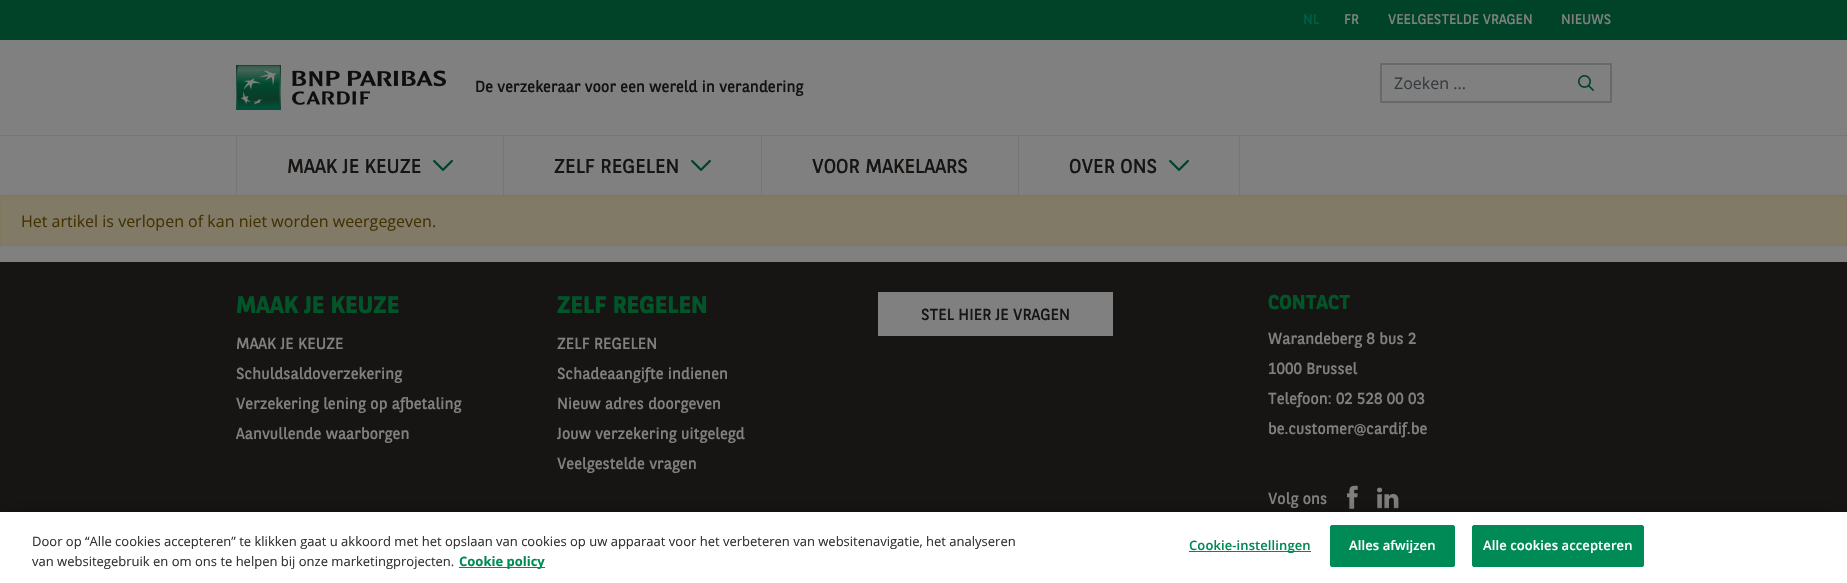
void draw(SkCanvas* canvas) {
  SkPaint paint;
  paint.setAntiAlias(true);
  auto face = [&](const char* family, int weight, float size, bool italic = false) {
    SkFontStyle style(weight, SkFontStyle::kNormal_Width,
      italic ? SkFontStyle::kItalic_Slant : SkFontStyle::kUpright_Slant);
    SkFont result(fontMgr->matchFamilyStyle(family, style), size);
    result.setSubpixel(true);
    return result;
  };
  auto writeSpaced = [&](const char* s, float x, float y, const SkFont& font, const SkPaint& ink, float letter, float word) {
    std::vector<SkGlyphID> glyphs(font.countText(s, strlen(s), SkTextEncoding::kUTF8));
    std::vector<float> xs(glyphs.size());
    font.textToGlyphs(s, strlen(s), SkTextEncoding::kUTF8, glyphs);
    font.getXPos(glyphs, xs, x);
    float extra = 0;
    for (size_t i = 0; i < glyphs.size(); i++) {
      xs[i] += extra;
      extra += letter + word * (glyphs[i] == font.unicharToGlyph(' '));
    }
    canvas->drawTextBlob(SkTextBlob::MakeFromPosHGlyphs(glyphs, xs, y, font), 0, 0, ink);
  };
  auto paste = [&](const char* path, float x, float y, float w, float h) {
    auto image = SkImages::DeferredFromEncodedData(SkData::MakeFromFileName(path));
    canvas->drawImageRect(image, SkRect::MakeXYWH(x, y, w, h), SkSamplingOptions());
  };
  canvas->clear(0xff808080);
  paint.setColor(0xff004329);
  canvas->drawRect(SkRect::MakeXYWH(0, 0, 1847, 40), paint);
  paste("img/1.png", 236, 65, 210, 45);
  {
    const struct { float x, y, w, h; SkColor color; } items[] = {
      {1380, 63, 232, 2, 0xff676a6d},
      {1380, 101, 182, 2, 0xff676a6d},
      {1380, 63, 2, 40, 0xff676a6d},
      {1610, 63, 2, 40, 0xff676a6d},
      {1562, 101, 50, 2, 0xff676a6d},
    };
    for (auto [x, y, w, h, color] : items) {
      paint.setColor(color);
      canvas->drawRect(SkRect::MakeXYWH(x, y, w, h), paint);
    }
  }
  paste("img/2.png", 1578, 75, 16, 16);
  {
    const struct { float x, y, w, h; SkColor color; } items[] = {
      {0, 135, 1847, 1, 0xff767676},
      {0, 195, 1847, 1, 0xff767676},
      {503, 136, 1, 59, 0xff767676},
      {236, 136, 1, 59, 0xff767676},
    };
    for (auto [x, y, w, h, color] : items) {
      paint.setColor(color);
      canvas->drawRect(SkRect::MakeXYWH(x, y, w, h), paint);
    }
  }
  paste("img/3.png", 433, 159, 20, 12);
  canvas->drawRect(SkRect::MakeXYWH(761, 136, 1, 59), paint);
  paste("img/3.png", 691, 159, 20, 12);
  canvas->drawRect(SkRect::MakeXYWH(1018, 136, 1, 59), paint);
  canvas->drawRect(SkRect::MakeXYWH(1239, 136, 1, 59), paint);
  paste("img/3.png", 1169, 159, 20, 12);
  paint.setColor(0xff807a67);
  canvas->drawRect(SkRect::MakeXYWH(0.5f, 196.5f, 1846, 49), paint);
  paint.setStroke(true);
  paint.setStrokeWidth(1);
  paint.setColor(0xff80775d);
  canvas->drawRect(SkRect::MakeXYWH(0.5f, 196.5f, 1846, 49), paint);
  paint.setStroke(false);
  paint.setColor(0xff171513);
  canvas->drawRect(SkRect::MakeXYWH(0, 262, 1847, 250), paint);
  paint.setColor(0xff808080);
  canvas->drawRect(SkRect::MakeXYWH(878, 292, 235, 44), paint);
  paste("img/4.png", 1347, 485, 11, 24);
  paste("img/5.png", 1377, 487, 22, 22);
  paint.setColor(0x33000000);
  paint.setMaskFilter(SkMaskFilter::MakeBlur(kNormal_SkBlurStyle, 9));
  canvas->drawRect(SkRect::MakeXYWH(0, 512, 1847, 71), paint);
  paint.setMaskFilter(nullptr);
  {
    const struct { float x, y, w, h; SkColor color; } items[] = {
      {0, 512, 1847, 71, 0xffffffff},
      {459, 567, 86, 1, 0xff008a56},
      {1189, 551, 122, 1, 0xff008a56},
    };
    for (auto [x, y, w, h, color] : items) {
      paint.setColor(color);
      canvas->drawRect(SkRect::MakeXYWH(x, y, w, h), paint);
    }
  }
  canvas->drawRoundRect(SkRect::MakeXYWH(1330.5f, 525.5f, 124, 41), 1.5f, 1.5f, paint);
  paint.setStroke(true);
  canvas->drawRoundRect(SkRect::MakeXYWH(1330.5f, 525.5f, 124, 41), 1.5f, 1.5f, paint);
  paint.setStroke(false);
  canvas->drawRoundRect(SkRect::MakeXYWH(1472.5f, 525.5f, 171, 41), 1.5f, 1.5f, paint);
  paint.setStroke(true);
  canvas->drawRoundRect(SkRect::MakeXYWH(1472.5f, 525.5f, 171, 41), 1.5f, 1.5f, paint);
  auto f0 = face("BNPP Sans", 400, 14);
  paint.setStroke(false);
  paint.setColor(0xff005e46);
  canvas->drawString("NL", 1303, 24, f0, paint);
  paint.setColor(0xff808080);
  {
    const struct { const char* s; float x, y; } items[] = {
      {"FR", 1344, 24},
      {"VEELGESTELDE VRAGEN", 1388, 24},
      {"NIEUWS", 1561, 24},
    };
    for (auto [s, x, y] : items) {
      canvas->drawString(s, x, y, f0, paint);
    }
  }
  auto f1 = face("BNPP Sans", 400, 16);
  paint.setColor(0xff111315);
  canvas->drawString("De verzekeraar voor een wereld in verandering", 475, 92, f1, paint);
  auto f2 = face("Open Sans", 400, 16);
  paint.setColor(0xff363b3f);
  canvas->drawString("Zoeken ...", 1394, 89, f2, paint);
  auto f3 = face("BNPP Sans", 400, 20);
  paint.setColor(0xff171513);
  {
    const struct { const char* s; float x, y; } items[] = {
      {"MAAK JE KEUZE", 287, 173},
      {"ZELF REGELEN", 554, 173},
      {"VOOR MAKELAARS", 812, 173},
      {"OVER ONS", 1069, 173},
    };
    for (auto [s, x, y] : items) {
      canvas->drawString(s, x, y, f3, paint);
    }
  }
  paint.setColor(0xff433202);
  canvas->drawString("Het artikel is verlopen of kan niet worden weergegeven.", 21, 227, f2, paint);
  auto f4 = face("BNPP Sans", 700, 24);
  paint.setColor(0xff005529);
  canvas->drawString("MAAK JE KEUZE", 236, 313, f4, paint);
  paint.setColor(0xff808080);
  {
    const struct { const char* s; float x, y; } items[] = {
      {"MAAK JE KEUZE", 236, 349},
      {"Schuldsaldoverzekering", 236, 379},
      {"Verzekering lening op afbetaling", 236, 409},
      {"Aanvullende waarborgen", 236, 439},
    };
    for (auto [s, x, y] : items) {
      canvas->drawString(s, x, y, f1, paint);
    }
  }
  paint.setColor(0xff005529);
  canvas->drawString("ZELF REGELEN", 557, 313, f4, paint);
  paint.setColor(0xff808080);
  {
    const struct { const char* s; float x, y; } items[] = {
      {"ZELF REGELEN", 557, 349},
      {"Schadeaangifte indienen", 557, 379},
      {"Nieuw adres doorgeven", 557, 409},
      {"Jouw verzekering uitgelegd", 557, 439},
      {"Veelgestelde vragen", 557, 469},
    };
    for (auto [s, x, y] : items) {
      canvas->drawString(s, x, y, f1, paint);
    }
  }
  paint.setColor(0xff171513);
  canvas->drawString("STEL HIER JE VRAGEN", 921, 320, f1, paint);
  auto f5 = face("BNPP Sans", 700, 20);
  paint.setColor(0xff005529);
  canvas->drawString("CONTACT", 1268, 309, f5, paint);
  paint.setColor(0xff808080);
  {
    const struct { const char* s; float x, y; } items[] = {
      {"Warandeberg 8 bus 2", 1268, 344},
      {"1000 Brussel", 1268, 374},
      {"Telefoon: 02 528 00 03", 1268, 404},
      {"be.customer@cardif.be", 1268, 434},
      {"Volg ons", 1268, 504},
    };
    for (auto [s, x, y] : items) {
      canvas->drawString(s, x, y, f1, paint);
    }
  }
  auto f6 = face("Open Sans", 400, 13);
  paint.setColor(0xff323232);
  canvas->drawString("Door op “Alle cookies accepteren” te klikken gaat u akkoord met het opslaan van cookies op uw apparaat voor het verbeteren van websitenavigatie, het analyseren", 32, 546, f6, paint);
  canvas->drawString("van websitegebruik en om ons te helpen bij onze marketingprojecten.", 32, 566, f6, paint);
  auto f7 = face("Open Sans", 700, 13);
  paint.setColor(0xff008a56);
  canvas->drawString("Cookie policy", 459, 566, f7, paint);
  auto f8 = face("Open Sans", 600, 13);
  writeSpaced("Cookie-instellingen", 1189, 550, f8, paint, 0.1f, 0);
  paint.setColor(0xffffffff);
  writeSpaced("Alles afwijzen", 1349, 550, f8, paint, 0.1f, 0);
  writeSpaced("Alle cookies accepteren", 1483, 550, f8, paint, 0.1f, 0);
}
